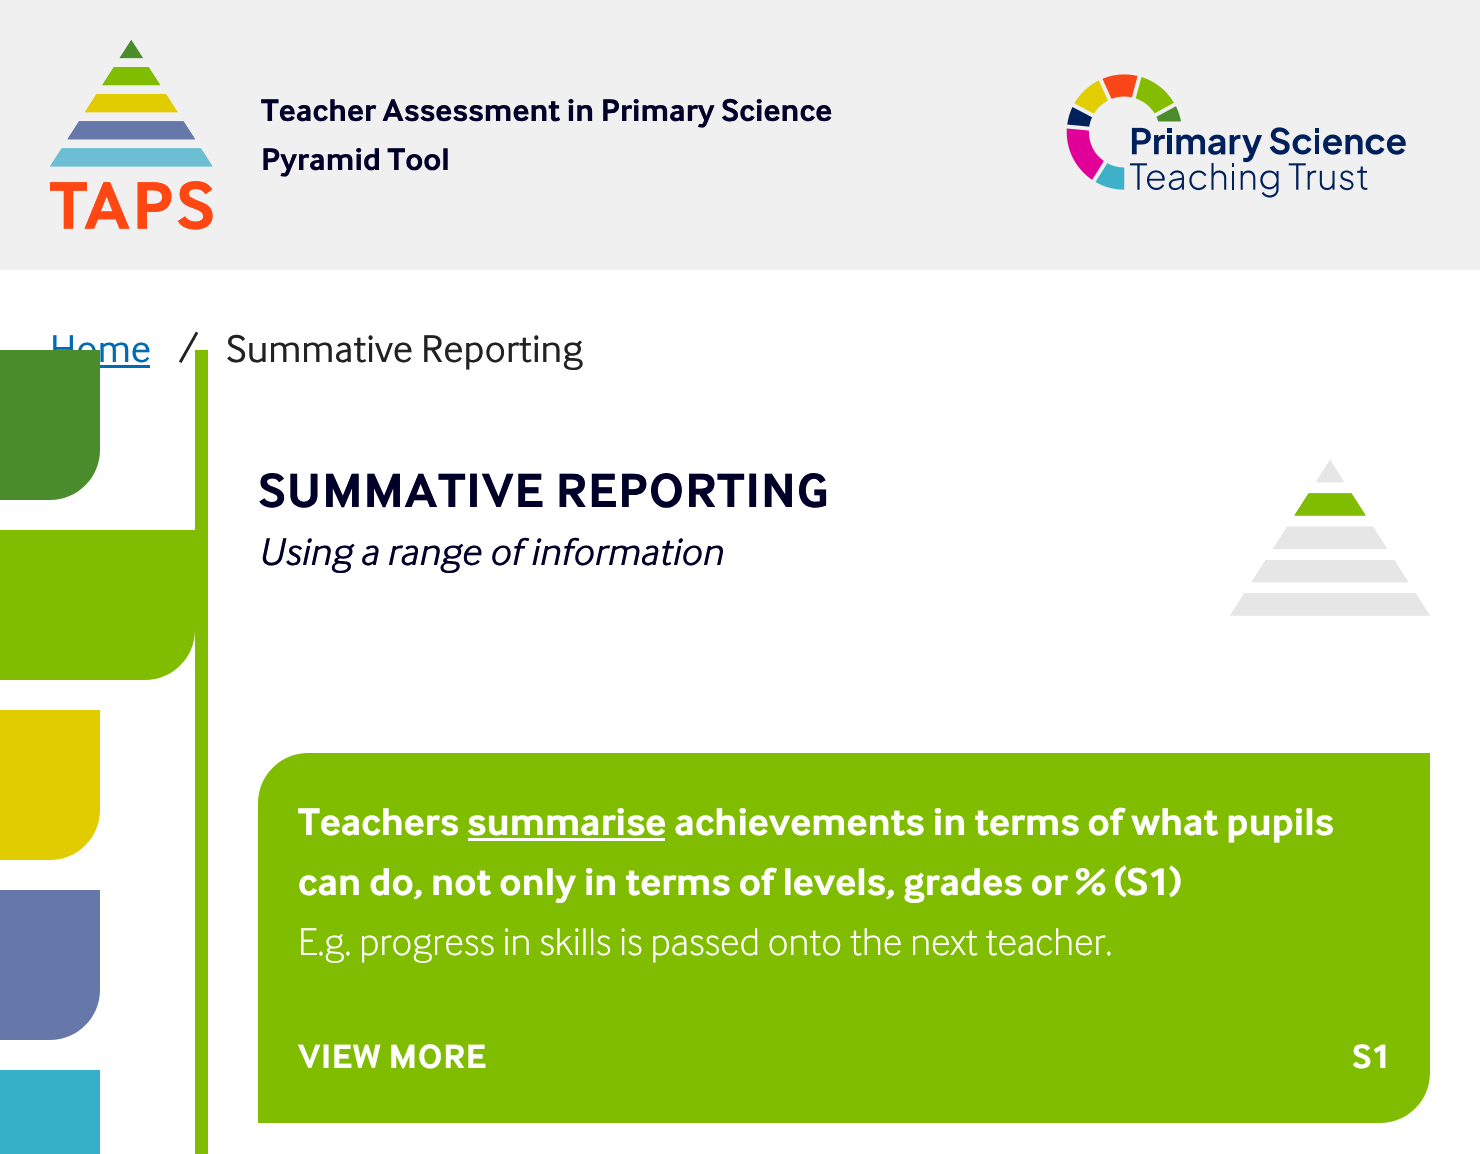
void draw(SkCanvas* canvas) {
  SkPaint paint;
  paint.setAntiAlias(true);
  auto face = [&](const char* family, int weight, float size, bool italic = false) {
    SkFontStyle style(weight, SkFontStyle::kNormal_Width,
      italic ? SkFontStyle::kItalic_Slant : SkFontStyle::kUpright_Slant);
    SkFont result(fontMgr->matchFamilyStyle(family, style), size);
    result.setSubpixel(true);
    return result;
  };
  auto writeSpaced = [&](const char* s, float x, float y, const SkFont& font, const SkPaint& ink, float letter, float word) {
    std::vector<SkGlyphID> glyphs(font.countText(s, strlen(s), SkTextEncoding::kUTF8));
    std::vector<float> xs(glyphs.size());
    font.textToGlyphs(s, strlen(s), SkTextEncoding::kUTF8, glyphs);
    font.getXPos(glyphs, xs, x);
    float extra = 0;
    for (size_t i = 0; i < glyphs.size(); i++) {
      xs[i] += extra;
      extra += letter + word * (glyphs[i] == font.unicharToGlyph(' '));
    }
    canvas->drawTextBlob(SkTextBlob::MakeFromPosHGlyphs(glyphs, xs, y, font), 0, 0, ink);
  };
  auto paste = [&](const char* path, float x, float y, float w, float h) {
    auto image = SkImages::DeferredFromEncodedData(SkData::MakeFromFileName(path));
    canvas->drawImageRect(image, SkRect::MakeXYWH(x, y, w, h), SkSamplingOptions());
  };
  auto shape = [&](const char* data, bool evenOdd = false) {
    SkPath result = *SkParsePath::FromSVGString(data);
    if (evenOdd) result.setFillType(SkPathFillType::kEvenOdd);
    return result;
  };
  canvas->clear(0xffffffff);
  paint.setColor(0xfff0f0f0);
  canvas->drawRect(SkRect::MakeXYWH(0, 0, 1480, 270), paint);
  paste("img/1.png", 50, 40, 163, 190);
  paste("img/2.png", 1066, 74, 340, 124);
  paint.setColor(0xff006ab3);
  canvas->drawRect(SkRect::MakeXYWH(100, 365, 50, 3), paint);
  paint.setColor(0xff80bc00);
  canvas->drawPath(shape("M0 530H195V630C195 657.5 172.5 680 145 680H0Z"), paint);
  paint.setColor(0xffe0cc00);
  canvas->drawPath(shape("M0 710H100V810C100 837.5 77.5 860 50 860H0Z"), paint);
  paint.setColor(0xff6678aa);
  canvas->drawPath(shape("M0 890H100V990C100 1017.5 77.5 1040 50 1040H0Z"), paint);
  paint.setColor(0xff36b0c9);
  canvas->drawRect(SkRect::MakeXYWH(0, 1070, 100, 84), paint);
  paste("img/3.png", 1230, 460, 200, 156);
  paint.setColor(0xff80bc00);
  canvas->drawPath(shape("M308 753H1430V1073C1430 1100.5 1407.5 1123 1380 1123H258V803C258 775.5 280.5 753 308 753Z"), paint);
  paint.setColor(0xffffffff);
  canvas->drawRect(SkRect::MakeXYWH(468, 838, 197, 3), paint);
  auto f0 = face("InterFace", 700, 32.5f);
  paint.setColor(0xff000028);
  canvas->drawString("Teacher Assessment in Primary Science", 261, 121, f0, paint);
  canvas->drawString("Pyramid Tool", 261, 170, f0, paint);
  auto f1 = face("InterFace", 400, 40);
  paint.setColor(0xff006ab3);
  canvas->drawString("Home", 50, 362, f1, paint);
  paint.setColor(0xff222222);
  canvas->drawString("/", 179, 362, f1, paint);
  canvas->drawString("Summative Reporting", 226, 362, f1, paint);
  paint.setColor(0xff80bc00);
  canvas->drawRect(SkRect::MakeXYWH(195, 350, 13, 804), paint);
  paint.setColor(0xff4a8b2c);
  canvas->drawPath(shape("M0 350H100V450C100 477.5 77.5 500 50 500H0Z"), paint);
  auto f2 = face("InterFace", 700, 50);
  paint.setColor(0xff000028);
  writeSpaced("SUMMATIVE REPORTING", 258, 507, f2, paint, 1, 0);
  auto f3 = face("InterFace", 400, 40, true);
  canvas->drawString("Using a range of information", 258, 565, f3, paint);
  auto f4 = face("InterFace", 700, 40);
  paint.setColor(0xffffffff);
  canvas->drawString("Teachers summarise achievements in terms of what pupils", 298, 835, f4, paint);
  canvas->drawString("can do, not only in terms of levels, grades or % (S1)", 298, 895, f4, paint);
  auto f5 = face("InterFace", 300, 40);
  canvas->drawString("E.g. progress in skills is passed onto the next teacher.", 298, 955, f5, paint);
  auto f6 = face("InterFace", 700, 35);
  writeSpaced("VIEW MORE", 298, 1068, f6, paint, 0.75f, 0);
  canvas->drawString("S1", 1352, 1068, f6, paint);
}
